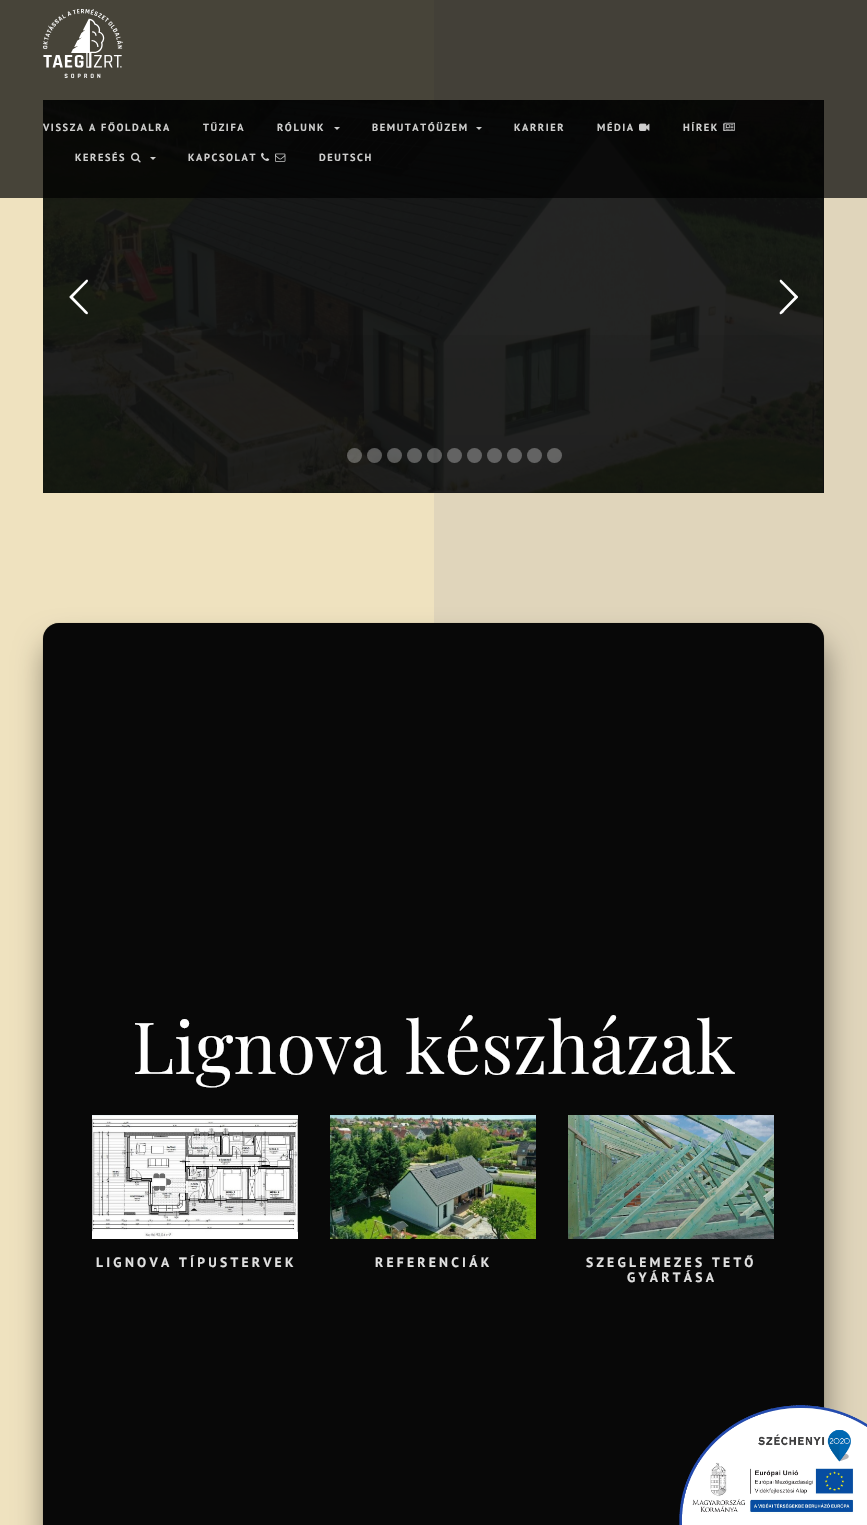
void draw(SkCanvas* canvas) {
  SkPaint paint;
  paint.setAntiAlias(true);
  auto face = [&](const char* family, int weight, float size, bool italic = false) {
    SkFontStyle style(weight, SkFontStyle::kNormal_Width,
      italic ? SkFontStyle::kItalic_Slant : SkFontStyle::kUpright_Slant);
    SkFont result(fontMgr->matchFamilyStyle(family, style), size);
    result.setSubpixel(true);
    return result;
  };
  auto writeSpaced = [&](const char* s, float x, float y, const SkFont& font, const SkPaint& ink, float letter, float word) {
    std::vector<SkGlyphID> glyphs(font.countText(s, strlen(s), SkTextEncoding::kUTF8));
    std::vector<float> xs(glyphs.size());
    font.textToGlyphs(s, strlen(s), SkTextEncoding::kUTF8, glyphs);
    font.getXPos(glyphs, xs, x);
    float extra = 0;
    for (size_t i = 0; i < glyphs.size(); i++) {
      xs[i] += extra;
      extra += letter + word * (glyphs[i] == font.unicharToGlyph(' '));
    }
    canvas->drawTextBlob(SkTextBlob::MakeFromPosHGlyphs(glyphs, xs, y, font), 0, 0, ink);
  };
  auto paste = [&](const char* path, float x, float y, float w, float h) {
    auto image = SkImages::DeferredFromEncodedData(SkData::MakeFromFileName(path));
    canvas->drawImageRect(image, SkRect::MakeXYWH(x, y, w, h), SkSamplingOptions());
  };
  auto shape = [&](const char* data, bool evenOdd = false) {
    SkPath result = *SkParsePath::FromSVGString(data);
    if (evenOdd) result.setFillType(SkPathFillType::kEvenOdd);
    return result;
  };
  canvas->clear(0xffefe2bf);
  paint.setColor(0xffe0d5bb);
  canvas->drawRect(SkRect::MakeXYWH(434, 0, 433, 1424), paint);
  paint.setColor(0xff111111);
  canvas->drawRect(SkRect::MakeXYWH(43, 100, 781, 393), paint);
  paste("img/7.png", 43, 100, 780, 393);
  paint.setColor(0xb3000000);
  canvas->drawRect(SkRect::MakeXYWH(0, 0, 867, 198), paint);
  paste("img/1.png", 43, 9, 80, 69);
  paint.setColor(0xffcdcdcd);
  canvas->drawPath(shape("M334 127H340L337 130Z"), paint);
  canvas->drawPath(shape("M476 127H482L479 130Z"), paint);
  paste("img/2.png", 639, 123, 11, 8);
  paste("img/3.png", 723, 122, 12, 9);
  paste("img/4.png", 131, 152, 10, 11);
  paint.setColor(0xffcececd);
  canvas->drawPath(shape("M150 157H156L153 160Z"), paint);
  paste("img/5.png", 261, 152, 9, 9);
  paste("img/6.png", 275, 153, 11, 9);
  {
    const SkColor colors[] = {0x00000000, 0x1f000000};
    const float stops[] = {0, 1};
    const SkPoint ends[] = {{433, 93}, {433, 493}};
    paint.setShader(SkGradientShader::MakeLinear(ends, colors, stops, 2, SkTileMode::kClamp));
    paint.setAlpha(255);
  }
  canvas->drawRect(SkRect::MakeXYWH(43, 335, 780, 158), paint);
  paint.setShader(nullptr);
  paint.setColor(0xffffffff);
  canvas->drawPath(shape("M87.5 312L88 313C87 316.5 83.5 311.5 83 311L69.5 297.5V296.5L86 280L87 279.5C90 280.5 85.5 284 85 284.5L73 297Z"), paint);
  canvas->drawPath(shape("M780 312L794.5 297L782.5 284.5C782 284 777.5 280.5 781 279.5L781.5 280L798 296.5V297.5L784.5 311C784.5 311.5 780.5 316.5 779.5 313Z"), paint);
  paint.setColor(0x4dffffff);
  canvas->drawCircle(354.5f, 455.5f, 7.5f, paint);
  canvas->drawCircle(374.5f, 455.5f, 7.5f, paint);
  canvas->drawCircle(394.5f, 455.5f, 7.5f, paint);
  canvas->drawCircle(414.5f, 455.5f, 7.5f, paint);
  canvas->drawCircle(434.5f, 455.5f, 7.5f, paint);
  paint.setColor(0xff636363);
  canvas->drawCircle(454.5f, 455.5f, 7.5f, paint);
  canvas->drawCircle(474.5f, 455.5f, 7.5f, paint);
  canvas->drawCircle(494.5f, 455.5f, 7.5f, paint);
  canvas->drawCircle(514.5f, 455.5f, 7.5f, paint);
  canvas->drawCircle(534.5f, 455.5f, 7.5f, paint);
  paint.setColor(0x4dffffff);
  canvas->drawCircle(554.5f, 455.5f, 7.5f, paint);
  paint.setColor(0x66000000);
  paint.setMaskFilter(SkMaskFilter::MakeBlur(kNormal_SkBlurStyle, 0.5f));
  canvas->drawRoundRect(SkRect::MakeXYWH(43, 623, 781, 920), 16, 16, paint);
  paint.setMaskFilter(nullptr);
  paint.setMaskFilter(SkMaskFilter::MakeBlur(kNormal_SkBlurStyle, 15));
  canvas->drawRoundRect(SkRect::MakeXYWH(45, 643, 781, 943), 16, 16, paint);
  paint.setMaskFilter(nullptr);
  paint.setColor(0xff080808);
  canvas->drawRoundRect(SkRect::MakeXYWH(43, 623, 781, 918), 16, 16, paint);
  paste("img/8.png", 92, 1115, 206, 124);
  paste("img/9.png", 330, 1115, 206, 124);
  paste("img/10.png", 568, 1115, 206, 124);
  paste("img/11.png", 679, 1405, 188, 120);
  auto f0 = face("PT Sans", 700, 10.4f);
  paint.setColor(0xffcececd);
  {
    const struct { const char* s; float x, y; } items[] = {
      {"VISSZA A FŐOLDALRA", 43, 131},
      {"TŰZIFA", 203, 131},
      {"RÓLUNK", 277, 131},
      {"BEMUTATÓÜZEM", 372, 131},
      {"KARRIER", 514, 131},
      {"MÉDIA", 597, 131},
      {"HÍREK", 683, 131},
      {"KERESÉS", 75, 161},
      {"KAPCSOLAT", 188, 161},
      {"DEUTSCH", 319, 161},
    };
    for (auto [s, x, y] : items) {
      writeSpaced(s, x, y, f0, paint, 1.6f, 0);
    }
  }
  auto f1 = face("Playfair Display", 400, 72);
  paint.setColor(0xffffffff);
  canvas->drawString("Lignova készházak", 132, 1074, f1, paint);
  auto f2 = face("PT Sans", 700, 13.6f);
  paint.setColor(0xffe0e0e0);
  {
    const struct { const char* s; float x, y; } items[] = {
      {"LIGNOVA TÍPUSTERVEK", 96, 1267},
      {"REFERENCIÁK", 375, 1267},
      {"SZEGLEMEZES TETŐ", 586, 1267},
      {"GYÁRTÁSA", 627, 1282},
    };
    for (auto [s, x, y] : items) {
      writeSpaced(s, x, y, f2, paint, 3.25f, 0);
    }
  }
}
